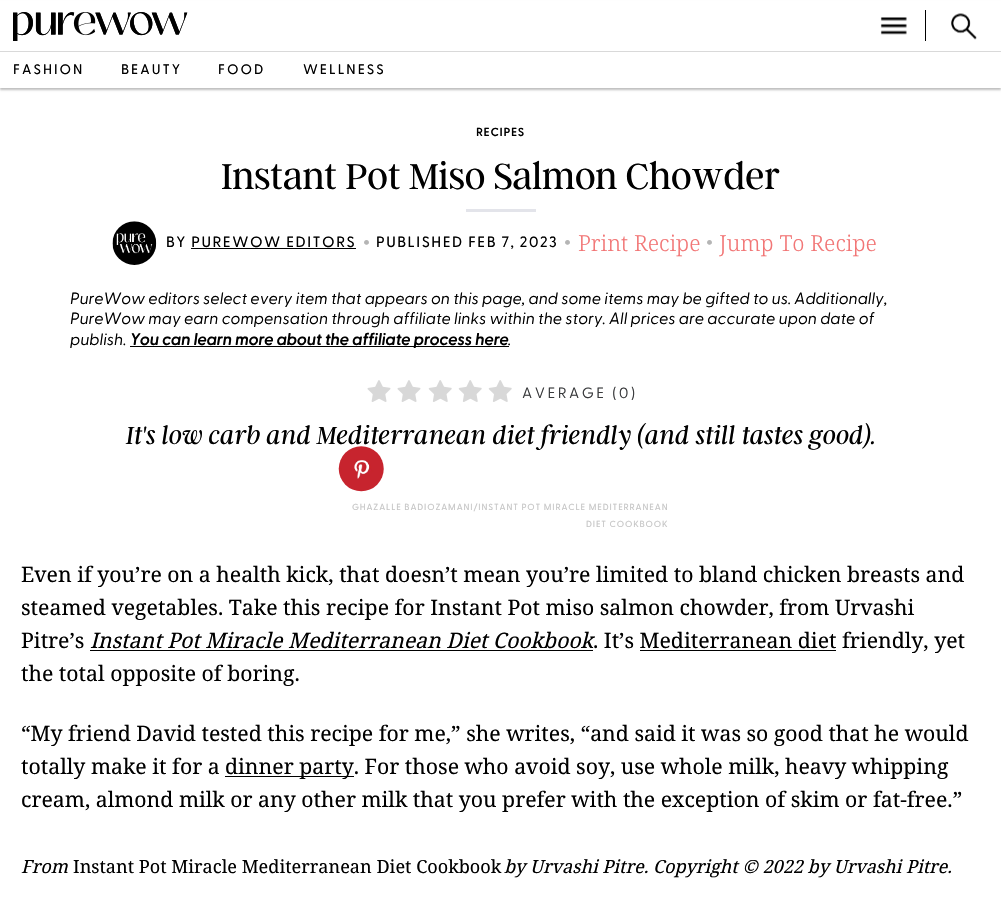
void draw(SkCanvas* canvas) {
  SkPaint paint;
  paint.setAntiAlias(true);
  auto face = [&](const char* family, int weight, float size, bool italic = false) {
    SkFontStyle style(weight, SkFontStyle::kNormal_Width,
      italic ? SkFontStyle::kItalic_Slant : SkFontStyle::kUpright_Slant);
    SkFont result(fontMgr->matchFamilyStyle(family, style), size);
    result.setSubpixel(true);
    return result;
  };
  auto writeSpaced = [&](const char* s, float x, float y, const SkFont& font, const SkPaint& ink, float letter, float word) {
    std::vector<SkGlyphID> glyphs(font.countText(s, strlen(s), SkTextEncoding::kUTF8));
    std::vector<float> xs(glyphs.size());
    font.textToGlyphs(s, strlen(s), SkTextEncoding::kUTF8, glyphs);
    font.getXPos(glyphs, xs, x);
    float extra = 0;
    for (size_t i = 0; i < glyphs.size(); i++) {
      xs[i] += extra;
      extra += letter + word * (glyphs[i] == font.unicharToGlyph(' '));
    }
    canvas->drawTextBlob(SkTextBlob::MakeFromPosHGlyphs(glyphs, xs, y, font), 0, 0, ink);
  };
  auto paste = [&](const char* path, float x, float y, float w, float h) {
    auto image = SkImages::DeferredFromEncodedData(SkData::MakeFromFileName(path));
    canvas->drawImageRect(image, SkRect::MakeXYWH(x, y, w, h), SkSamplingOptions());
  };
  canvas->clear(0xffffffff);
  paint.setColor(0x40000000);
  paint.setMaskFilter(SkMaskFilter::MakeBlur(kNormal_SkBlurStyle, 1));
  canvas->drawRect(SkRect::MakeXYWH(0, 3, 1001, 87), paint);
  paint.setMaskFilter(nullptr);
  paint.setColor(0xffffffff);
  canvas->drawRect(SkRect::MakeXYWH(0, 1, 1001, 87), paint);
  paint.setColor(0xffd9d9d9);
  canvas->drawRect(SkRect::MakeXYWH(0, 51, 1001, 1), paint);
  paste("img/1.png", 13, 12, 175, 29);
  paste("img/2.png", 880, 17, 27, 18);
  paint.setColor(0xff000000);
  canvas->drawRect(SkRect::MakeXYWH(925, 10, 1, 31), paint);
  paste("img/3.png", 951, 13, 26, 27);
  paint.setColor(0xffe3e4ea);
  canvas->drawRect(SkRect::MakeXYWH(466, 209, 70, 3), paint);
  paste("img/4.png", 112, 221, 45, 44);
  paint.setColor(0xff000000);
  canvas->drawRect(SkRect::MakeXYWH(191, 248, 165, 1), paint);
  canvas->drawRect(SkRect::MakeXYWH(130, 346, 379, 1), paint);
  paste("img/5.png", 367, 380, 24, 22);
  paste("img/5.png", 397, 380, 24, 22);
  paste("img/6.png", 428, 380, 24, 22);
  paste("img/6.png", 458, 380, 24, 22);
  paste("img/6.png", 488, 380, 24, 22);
  {
    const struct { float x, y, w, h; SkColor color; } items[] = {
      {90, 650, 503, 1, 0xff000000},
      {640, 650, 196, 1, 0xff000000},
      {225, 776, 129, 1, 0xff000000},
    };
    for (auto [x, y, w, h, color] : items) {
      paint.setColor(color);
      canvas->drawRect(SkRect::MakeXYWH(x, y, w, h), paint);
    }
  }
  auto f0 = face("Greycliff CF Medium", 500, 13.75f);
  {
    const struct { const char* s; float x, y; } items[] = {
      {"FASHION", 13, 74},
      {"BEAUTY", 121, 74},
      {"FOOD", 218, 74},
      {"WELLNESS", 303, 74},
    };
    for (auto [s, x, y] : items) {
      writeSpaced(s, x, y, f0, paint, 2, 0);
    }
  }
  auto f1 = face("Greycliff CF Medium", 700, 11.25f);
  writeSpaced("RECIPES", 476, 136, f1, paint, 1, 0);
  auto f2 = face("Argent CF", 300, 40);
  canvas->drawString("Instant Pot Miso Salmon Chowder", 221, 189, f2, paint);
  auto f3 = face("Greycliff CF Medium", 500, 15);
  writeSpaced("BY PUREWOW EDITORS", 166, 247, f3, paint, 1.5f, 0);
  auto f4 = face("Liberation Serif", 400, 20);
  paint.setColor(0xffb5b5b5);
  canvas->drawString("•", 363, 249, f4, paint);
  paint.setColor(0xff000000);
  writeSpaced("PUBLISHED FEB 7, 2023", 376, 247, f3, paint, 1.5f, 0);
  paint.setColor(0xffb5b5b5);
  canvas->drawString("•", 564, 249, f4, paint);
  auto f5 = face("Noto Serif", 300, 22);
  paint.setColor(0xfff27676);
  canvas->drawString("Print Recipe", 578, 251, f5, paint);
  paint.setColor(0xffb5b5b5);
  canvas->drawString("•", 706, 249, f4, paint);
  paint.setColor(0xfff27676);
  canvas->drawString("Jump To Recipe", 719, 251, f5, paint);
  auto f6 = face("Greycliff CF", 400, 16.25f, true);
  paint.setColor(0xff000000);
  {
    const struct { const char* s; float x, y; } items[] = {
      {"PureWow editors select every item that appears on this page, and some items may be gifted to us. Additionally,", 70, 304},
      {"PureWow may earn compensation through affiliate links within the story. All prices are accurate upon date of", 70, 324},
      {"publish.", 70, 345},
    };
    for (auto [s, x, y] : items) {
      canvas->drawString(s, x, y, f6, paint);
    }
  }
  auto f7 = face("Greycliff CF Medium", 700, 16.25f, true);
  canvas->drawString("You can learn more about the affiliate process here", 130, 345, f7, paint);
  canvas->drawString(".", 508, 345, f6, paint);
  auto f8 = face("Greycliff CF", 400, 15);
  paint.setColor(0xff393a3c);
  writeSpaced("AVERAGE (0)", 522, 398, f8, paint, 2.5f, 0);
  auto f9 = face("Argent CF", 300, 27.5f, true);
  paint.setColor(0xff000000);
  canvas->drawString("It's low carb and Mediterranean diet friendly (and still tastes good).", 126, 444, f9, paint);
  paste("img/7.png", 338, 446, 46, 46);
  auto f10 = face("Greycliff CF Medium", 500, 8.75f);
  paint.setColor(0xffc6c6c6);
  writeSpaced("GHAZALLE BADIOZAMANI/INSTANT POT MIRACLE MEDITERRANEAN", 352, 510, f10, paint, 0.88f, 0);
  writeSpaced("DIET COOKBOOK", 586, 527, f10, paint, 0.88f, 0);
  auto f11 = face("Noto Serif", 400, 21.25f);
  paint.setColor(0xff000000);
  {
    const struct { const char* s; float x, y; } items[] = {
      {"Even if you’re on a health kick, that doesn’t mean you’re limited to bland chicken breasts and", 21, 582},
      {"steamed vegetables. Take this recipe for Instant Pot miso salmon chowder, from Urvashi", 21, 615},
      {"Pitre’s", 21, 648},
    };
    for (auto [s, x, y] : items) {
      canvas->drawString(s, x, y, f11, paint);
    }
  }
  auto f12 = face("Noto Serif", 400, 21.25f, true);
  canvas->drawString("Instant Pot Miracle Mediterranean Diet Cookbook", 90, 648, f12, paint);
  {
    const struct { const char* s; float x, y; } items[] = {
      {". It’s Mediterranean diet friendly, yet", 593, 648},
      {"the total opposite of boring.", 21, 681},
      {"“My friend David tested this recipe for me,” she writes, “and said it was so good that he would", 21, 741},
      {"totally make it for a", 21, 774},
      {"dinner party. For those who avoid soy, use whole milk, heavy whipping", 225, 774},
      {"cream, almond milk or any other milk that you prefer with the exception of skim or fat-free.”", 21, 807},
    };
    for (auto [s, x, y] : items) {
      canvas->drawString(s, x, y, f11, paint);
    }
  }
  auto f13 = face("Noto Serif", 400, 18.1f, true);
  canvas->drawString("From", 21, 873, f13, paint);
  auto f14 = face("Noto Serif", 400, 18.1f);
  canvas->drawString("Instant Pot Miracle Mediterranean Diet Cookbook", 73, 873, f14, paint);
  canvas->drawString("by Urvashi Pitre. Copyright © 2022 by Urvashi Pitre.", 504, 873, f13, paint);
}
